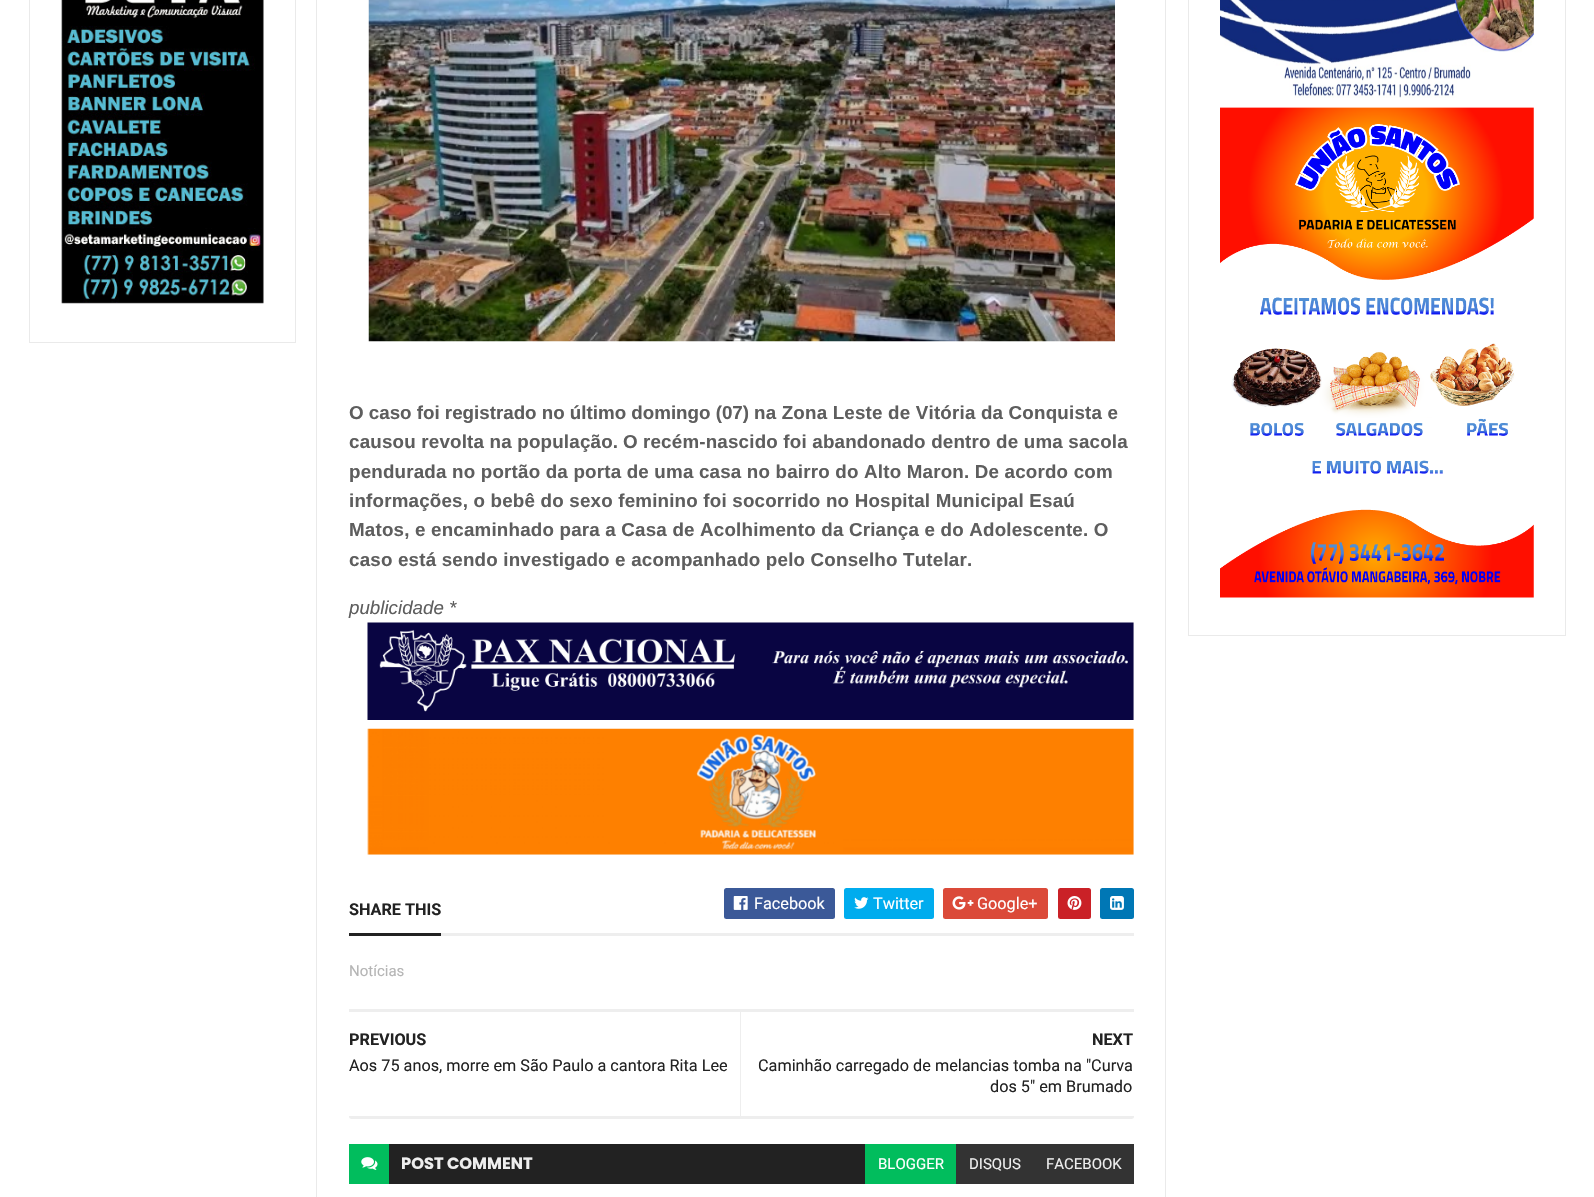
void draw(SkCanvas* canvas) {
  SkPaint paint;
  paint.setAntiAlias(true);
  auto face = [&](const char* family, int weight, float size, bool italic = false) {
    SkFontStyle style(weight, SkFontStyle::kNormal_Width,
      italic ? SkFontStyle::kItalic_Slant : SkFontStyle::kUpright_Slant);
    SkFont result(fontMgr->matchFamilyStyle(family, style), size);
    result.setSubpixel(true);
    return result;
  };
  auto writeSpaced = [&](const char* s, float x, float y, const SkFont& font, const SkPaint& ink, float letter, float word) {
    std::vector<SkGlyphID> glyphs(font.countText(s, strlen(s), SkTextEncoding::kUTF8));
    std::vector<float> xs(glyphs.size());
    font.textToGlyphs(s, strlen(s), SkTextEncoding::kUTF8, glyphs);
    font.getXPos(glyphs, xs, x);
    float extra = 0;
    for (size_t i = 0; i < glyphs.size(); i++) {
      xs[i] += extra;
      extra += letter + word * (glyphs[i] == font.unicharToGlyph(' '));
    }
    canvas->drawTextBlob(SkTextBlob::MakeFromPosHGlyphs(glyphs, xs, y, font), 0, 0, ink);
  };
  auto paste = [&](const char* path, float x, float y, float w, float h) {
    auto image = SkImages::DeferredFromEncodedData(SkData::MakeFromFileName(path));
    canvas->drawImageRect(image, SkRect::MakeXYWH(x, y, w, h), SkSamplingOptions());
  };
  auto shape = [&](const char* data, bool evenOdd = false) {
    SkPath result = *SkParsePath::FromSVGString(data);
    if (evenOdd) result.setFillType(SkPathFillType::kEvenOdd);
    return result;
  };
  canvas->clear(0xffffffff);
  paint.setStroke(true);
  paint.setStrokeWidth(1);
  paint.setColor(0xffeaeaea);
  canvas->drawRect(SkRect::MakeXYWH(1188.5f, -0.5f, 377, 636), paint);
  paste("img/1.png", 1220, 0, 314, 98);
  paste("img/2.png", 1220, 107, 314, 491);
  canvas->drawRect(SkRect::MakeXYWH(29.5f, -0.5f, 266, 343), paint);
  paste("img/3.png", 61, 0, 203, 304);
  canvas->drawRect(SkRect::MakeXYWH(316.5f, -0.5f, 849, 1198), paint);
  paste("img/4.png", 368, 0, 747, 342);
  paste("img/5.png", 367, 622, 767, 98);
  paste("img/6.png", 367, 728, 767, 127);
  paint.setStroke(false);
  paint.setColor(0xffeeeeee);
  canvas->drawRect(SkRect::MakeXYWH(441, 933, 693, 3), paint);
  paint.setColor(0xff222222);
  canvas->drawRect(SkRect::MakeXYWH(349, 933, 92, 3), paint);
  paint.setColor(0xff3b5998);
  canvas->drawRoundRect(SkRect::MakeXYWH(724, 888, 111, 31), 2.5f, 2.5f, paint);
  paste("img/7.png", 733, 896, 15, 14);
  paint.setColor(0xff00acee);
  canvas->drawRoundRect(SkRect::MakeXYWH(844, 888, 90, 31), 2.5f, 2.5f, paint);
  paste("img/8.png", 854, 897, 15, 12);
  paint.setColor(0xffdb4a39);
  canvas->drawRoundRect(SkRect::MakeXYWH(943, 888, 105, 31), 2.5f, 2.5f, paint);
  paste("img/9.png", 952, 896, 22, 14);
  paint.setColor(0xffca2127);
  canvas->drawRoundRect(SkRect::MakeXYWH(1058, 888, 33, 31), 2.5f, 2.5f, paint);
  paste("img/10.png", 1067, 896, 15, 14);
  paint.setColor(0xff0077b5);
  canvas->drawRoundRect(SkRect::MakeXYWH(1100, 888, 34, 31), 2.5f, 2.5f, paint);
  paste("img/11.png", 1110, 896, 14, 14);
  paint.setColor(0xffeeeeee);
  canvas->drawRect(SkRect::MakeXYWH(349, 1009, 785, 3), paint);
  canvas->drawPath(shape("M349 1116H1134V1116.5C1134 1118 1133 1119 1131.5 1119H351.5C350 1119 349 1118 349 1116.5Z"), paint);
  {
    const struct { float x, y, w, h; SkColor color; } items[] = {
      {740, 1011, 1, 105, 0xffeeeeee},
      {389, 1144, 476, 40, 0xff222222},
      {349, 1144, 40, 40, 0xff01bd5d},
    };
    for (auto [x, y, w, h, color] : items) {
      paint.setColor(color);
      canvas->drawRect(SkRect::MakeXYWH(x, y, w, h), paint);
    }
  }
  paste("img/12.png", 361, 1157, 17, 13);
  canvas->drawRect(SkRect::MakeXYWH(865, 1144, 91, 40), paint);
  paint.setColor(0xff333333);
  canvas->drawRect(SkRect::MakeXYWH(956, 1144, 178, 40), paint);
  auto f0 = face("Liberation Sans", 700, 18.75f);
  paint.setColor(0xff5e5e5e);
  canvas->drawString("O caso foi registrado no último domingo (07)", 349, 419, f0, paint);
  writeSpaced("na Zona Leste de Vitória da Conquista e", 754, 419, f0, paint, 0.2f, 0);
  writeSpaced("causou revolta na população.", 349, 448, f0, paint, 0.2f, 0);
  canvas->drawString("O", 623, 448, f0, paint);
  {
    const struct { const char* s; float x, y; } items[] = {
      {"recém-nascido foi abandonado dentro de uma sacola", 643, 448},
      {"pendurada no portão da porta de uma casa no bairro do Alto Maron. De acordo com", 349, 478},
      {"informações, o bebê do sexo feminino foi socorrido no Hospital Municipal Esaú", 349, 507},
      {"Matos, e encaminhado para a Casa de Acolhimento da Criança e do Adolescente. O", 349, 536},
      {"caso está sendo investigado e acompanhado pelo Conselho Tutelar.", 349, 566},
    };
    for (auto [s, x, y] : items) {
      writeSpaced(s, x, y, f0, paint, 0.2f, 0);
    }
  }
  auto f1 = face("Liberation Sans", 400, 18.75f, true);
  canvas->drawString("publicidade *", 349, 614, f1, paint);
  auto f2 = face("Roboto", 700, 16.25f);
  paint.setColor(0xff222222);
  canvas->drawString("SHARE THIS", 349, 915, f2, paint);
  auto f3 = face("Roboto", 400, 16.25f);
  paint.setColor(0xffffffff);
  {
    const struct { const char* s; float x, y; } items[] = {
      {"Facebook", 754, 909},
      {"Twitter", 873, 909},
      {"Google+", 977, 909},
    };
    for (auto [s, x, y] : items) {
      canvas->drawString(s, x, y, f3, paint);
    }
  }
  auto f4 = face("Roboto", 400, 15);
  paint.setColor(0xffb5b5b5);
  canvas->drawString("Notícias", 349, 976, f4, paint);
  paint.setColor(0xff222222);
  canvas->drawString("PREVIOUS", 349, 1045, f2, paint);
  canvas->drawString("Aos 75 anos, morre em São Paulo a cantora Rita Lee", 349, 1071, f3, paint);
  canvas->drawString("NEXT", 1092, 1045, f2, paint);
  canvas->drawString("Caminhão carregado de melancias tomba na \"Curva", 758, 1071, f3, paint);
  canvas->drawString("dos 5\" em Brumado", 990, 1092, f3, paint);
  auto f5 = face("Poppins", 700, 16.25f);
  paint.setColor(0xffeeeeee);
  canvas->drawString("POST COMMENT", 401, 1169, f5, paint);
  paint.setColor(0xffffffff);
  canvas->drawString("BLOGGER", 878, 1169, f4, paint);
  paint.setColor(0xffeeeeee);
  canvas->drawString("DISQUS", 969, 1169, f4, paint);
  canvas->drawString("FACEBOOK", 1046, 1169, f4, paint);
}
